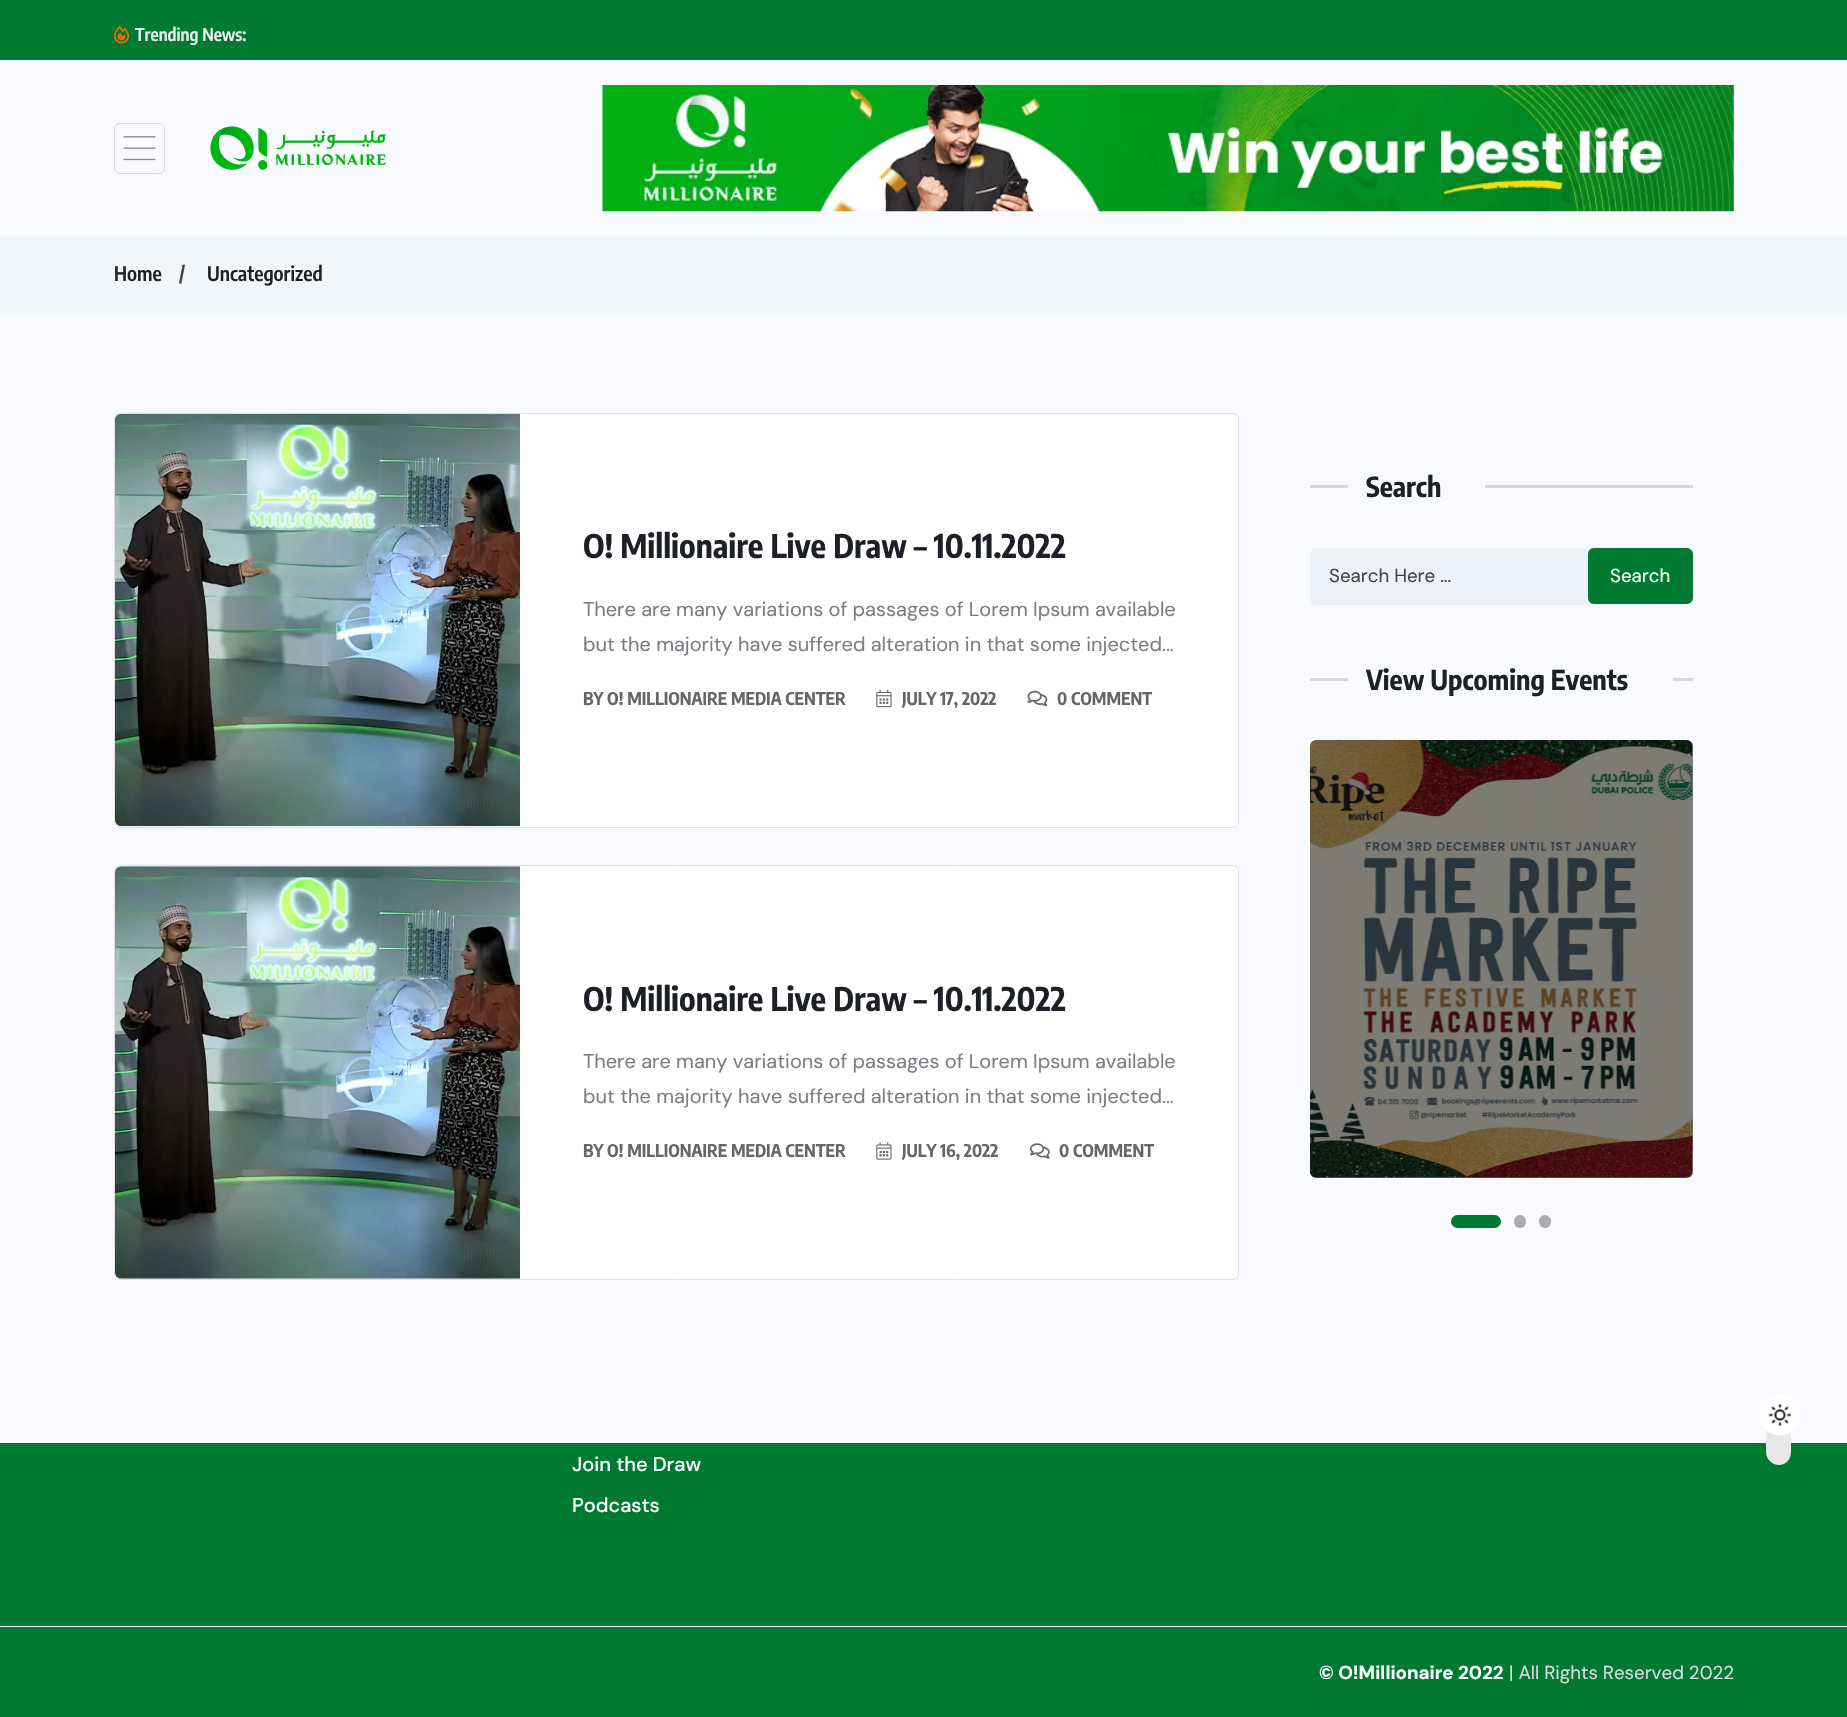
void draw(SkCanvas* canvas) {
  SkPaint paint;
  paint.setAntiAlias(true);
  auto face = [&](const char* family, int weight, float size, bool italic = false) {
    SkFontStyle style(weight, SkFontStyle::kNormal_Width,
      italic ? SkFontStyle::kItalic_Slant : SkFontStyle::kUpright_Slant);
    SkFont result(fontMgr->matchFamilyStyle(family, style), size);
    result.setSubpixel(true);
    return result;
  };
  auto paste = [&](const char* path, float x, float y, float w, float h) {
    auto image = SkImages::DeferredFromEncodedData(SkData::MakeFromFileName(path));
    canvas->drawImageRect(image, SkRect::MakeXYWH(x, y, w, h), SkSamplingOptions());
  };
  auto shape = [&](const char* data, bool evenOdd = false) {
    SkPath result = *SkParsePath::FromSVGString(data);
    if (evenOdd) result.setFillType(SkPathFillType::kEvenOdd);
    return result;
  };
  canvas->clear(0xff007a33);
  paint.setColor(0xfff9faff);
  canvas->drawRect(SkRect::MakeXYWH(0, 60, 1847, 1383), paint);
  paste("img/1.png", 114, 26, 16, 18);
  paint.setStroke(true);
  paint.setStrokeWidth(1);
  paint.setColor(0xffdbdcdd);
  canvas->drawRoundRect(SkRect::MakeXYWH(114.5f, 123.5f, 50, 50), 5.5f, 5.5f, paint);
  paste("img/2.png", 123, 136, 33, 25);
  paste("img/3.png", 210, 126, 176, 44);
  paste("img/4.png", 602, 85, 1132, 127);
  paint.setStroke(false);
  paint.setColor(0xfff2f6f9);
  canvas->drawRect(SkRect::MakeXYWH(0, 236, 1847, 77), paint);
  paint.setColor(0xffffffff);
  canvas->drawRoundRect(SkRect::MakeXYWH(114.5f, 413.5f, 1124, 414), 5.5f, 5.5f, paint);
  paint.setStroke(true);
  paint.setColor(0xffe1e1e1);
  canvas->drawRoundRect(SkRect::MakeXYWH(114.5f, 413.5f, 1124, 414), 5.5f, 5.5f, paint);
  paste("img/5.png", 115, 413, 405, 414);
  paste("img/6.png", 876, 689, 16, 19);
  paste("img/7.png", 1027, 690, 21, 17);
  paint.setStroke(false);
  paint.setColor(0xffffffff);
  canvas->drawRoundRect(SkRect::MakeXYWH(114.5f, 865.5f, 1124, 414), 5.5f, 5.5f, paint);
  paint.setStroke(true);
  paint.setColor(0xffe1e1e1);
  canvas->drawRoundRect(SkRect::MakeXYWH(114.5f, 865.5f, 1124, 414), 5.5f, 5.5f, paint);
  paste("img/8.png", 115, 866, 405, 413);
  paste("img/9.png", 876, 1142, 16, 18);
  paste("img/10.png", 1030, 1143, 20, 16);
  paint.setStroke(false);
  paint.setColor(0xffd7d7d7);
  canvas->drawRect(SkRect::MakeXYWH(1310, 485, 38, 3), paint);
  canvas->drawRect(SkRect::MakeXYWH(1485, 485, 208, 3), paint);
  paint.setColor(0xffecf1fc);
  canvas->drawRoundRect(SkRect::MakeXYWH(1310, 548, 295, 57), 6, 6, paint);
  paint.setColor(0xff007a33);
  canvas->drawRoundRect(SkRect::MakeXYWH(1588, 548, 105, 56), 6, 6, paint);
  paint.setColor(0xffd7d7d7);
  canvas->drawRect(SkRect::MakeXYWH(1310, 678, 38, 3), paint);
  canvas->drawRect(SkRect::MakeXYWH(1673, 678, 20, 3), paint);
  paste("img/11.png", 1310, 740, 383, 438);
  paint.setColor(0x80000000);
  canvas->drawRoundRect(SkRect::MakeXYWH(1310, 740, 383, 438), 6, 6, paint);
  paint.setColor(0xff007a33);
  canvas->drawRoundRect(SkRect::MakeXYWH(1451, 1215, 50, 13), 6.5f, 6.5f, paint);
  paint.setColor(0xffabacaf);
  canvas->drawRoundRect(SkRect::MakeXYWH(1514, 1215, 12, 13), 6, 6, paint);
  canvas->drawRoundRect(SkRect::MakeXYWH(1539, 1215, 12, 13), 6, 6, paint);
  paint.setColor(0xffe8e8e8);
  canvas->drawPath(shape("M1791 1409V1452C1791 1459 1786 1465 1779 1465C1772 1465 1766 1459 1766 1452V1409C1766 1402 1772 1396 1779 1396C1786 1396 1791 1402 1791 1409Z"), paint);
  paint.setColor(0xffffffff);
  canvas->drawPath(shape("M1801 1415C1801 1442 1759 1442 1759 1415C1759 1388 1801 1388 1801 1415Z"), paint);
  paste("img/12.png", 1768, 1404, 23, 23);
  canvas->drawRect(SkRect::MakeXYWH(0, 1626, 1847, 1), paint);
  auto f0 = face("Encode Sans Condensed", 600, 17.5f);
  paint.setColor(0xfff0f0f0);
  canvas->drawString("Trending News:", 135, 41, f0, paint);
  auto f1 = face("Encode Sans Condensed", 600, 20);
  paint.setColor(0xff1d2027);
  canvas->drawString("Home", 114, 281, f1, paint);
  paint.setColor(0xff434343);
  canvas->drawString("/", 179, 281, f1, paint);
  paint.setColor(0xff1d2027);
  canvas->drawString("Uncategorized", 207, 281, f1, paint);
  auto f2 = face("Encode Sans Condensed", 700, 32.5f);
  canvas->drawString("O! Millionaire Live Draw – 10.11.2022", 583, 558, f2, paint);
  auto f3 = face("DM Sans", 400, 20);
  paint.setColor(0xff7a7e83);
  canvas->drawString("There are many variations of passages of Lorem Ipsum available", 583, 616, f3, paint);
  canvas->drawString("but the majority have suffered alteration in that some injected...", 583, 651, f3, paint);
  auto f4 = face("Encode Sans Condensed", 700, 17.5f);
  paint.setColor(0xff666666);
  {
    const struct { const char* s; float x, y; } items[] = {
      {"BY O! MILLIONAIRE MEDIA CENTER", 583, 705},
      {"JULY 17, 2022", 902, 705},
      {"0 COMMENT", 1057, 705},
    };
    for (auto [s, x, y] : items) {
      canvas->drawString(s, x, y, f4, paint);
    }
  }
  paint.setColor(0xff1d2027);
  canvas->drawString("O! Millionaire Live Draw – 10.11.2022", 583, 1011, f2, paint);
  paint.setColor(0xff7a7e83);
  canvas->drawString("There are many variations of passages of Lorem Ipsum available", 583, 1068, f3, paint);
  canvas->drawString("but the majority have suffered alteration in that some injected...", 583, 1103, f3, paint);
  paint.setColor(0xff666666);
  {
    const struct { const char* s; float x, y; } items[] = {
      {"BY O! MILLIONAIRE MEDIA CENTER", 583, 1157},
      {"JULY 16, 2022", 902, 1157},
      {"0 COMMENT", 1059, 1157},
    };
    for (auto [s, x, y] : items) {
      canvas->drawString(s, x, y, f4, paint);
    }
  }
  auto f5 = face("Encode Sans Condensed", 700, 27.5f);
  paint.setColor(0xff1d2027);
  canvas->drawString("Search", 1366, 497, f5, paint);
  auto f6 = face("DM Sans", 400, 18.75f);
  paint.setColor(0xff434343);
  canvas->drawString("Search Here ...", 1329, 582, f6, paint);
  paint.setColor(0xffffffff);
  canvas->drawString("Search", 1610, 582, f6, paint);
  paint.setColor(0xff1d2027);
  canvas->drawString("View Upcoming Events", 1366, 690, f5, paint);
  auto f7 = face("DM Sans", 500, 20);
  paint.setColor(0xffffffff);
  canvas->drawString("Join the Draw", 572, 1471, f7, paint);
  canvas->drawString("Podcasts", 572, 1512, f7, paint);
  auto f8 = face("DM Sans", 700, 18.75f);
  canvas->drawString("© O!Millionaire 2022", 1319, 1679, f8, paint);
  paint.setColor(0xffdbdbdb);
  canvas->drawString("| All Rights Reserved 2022", 1509, 1679, f6, paint);
}
